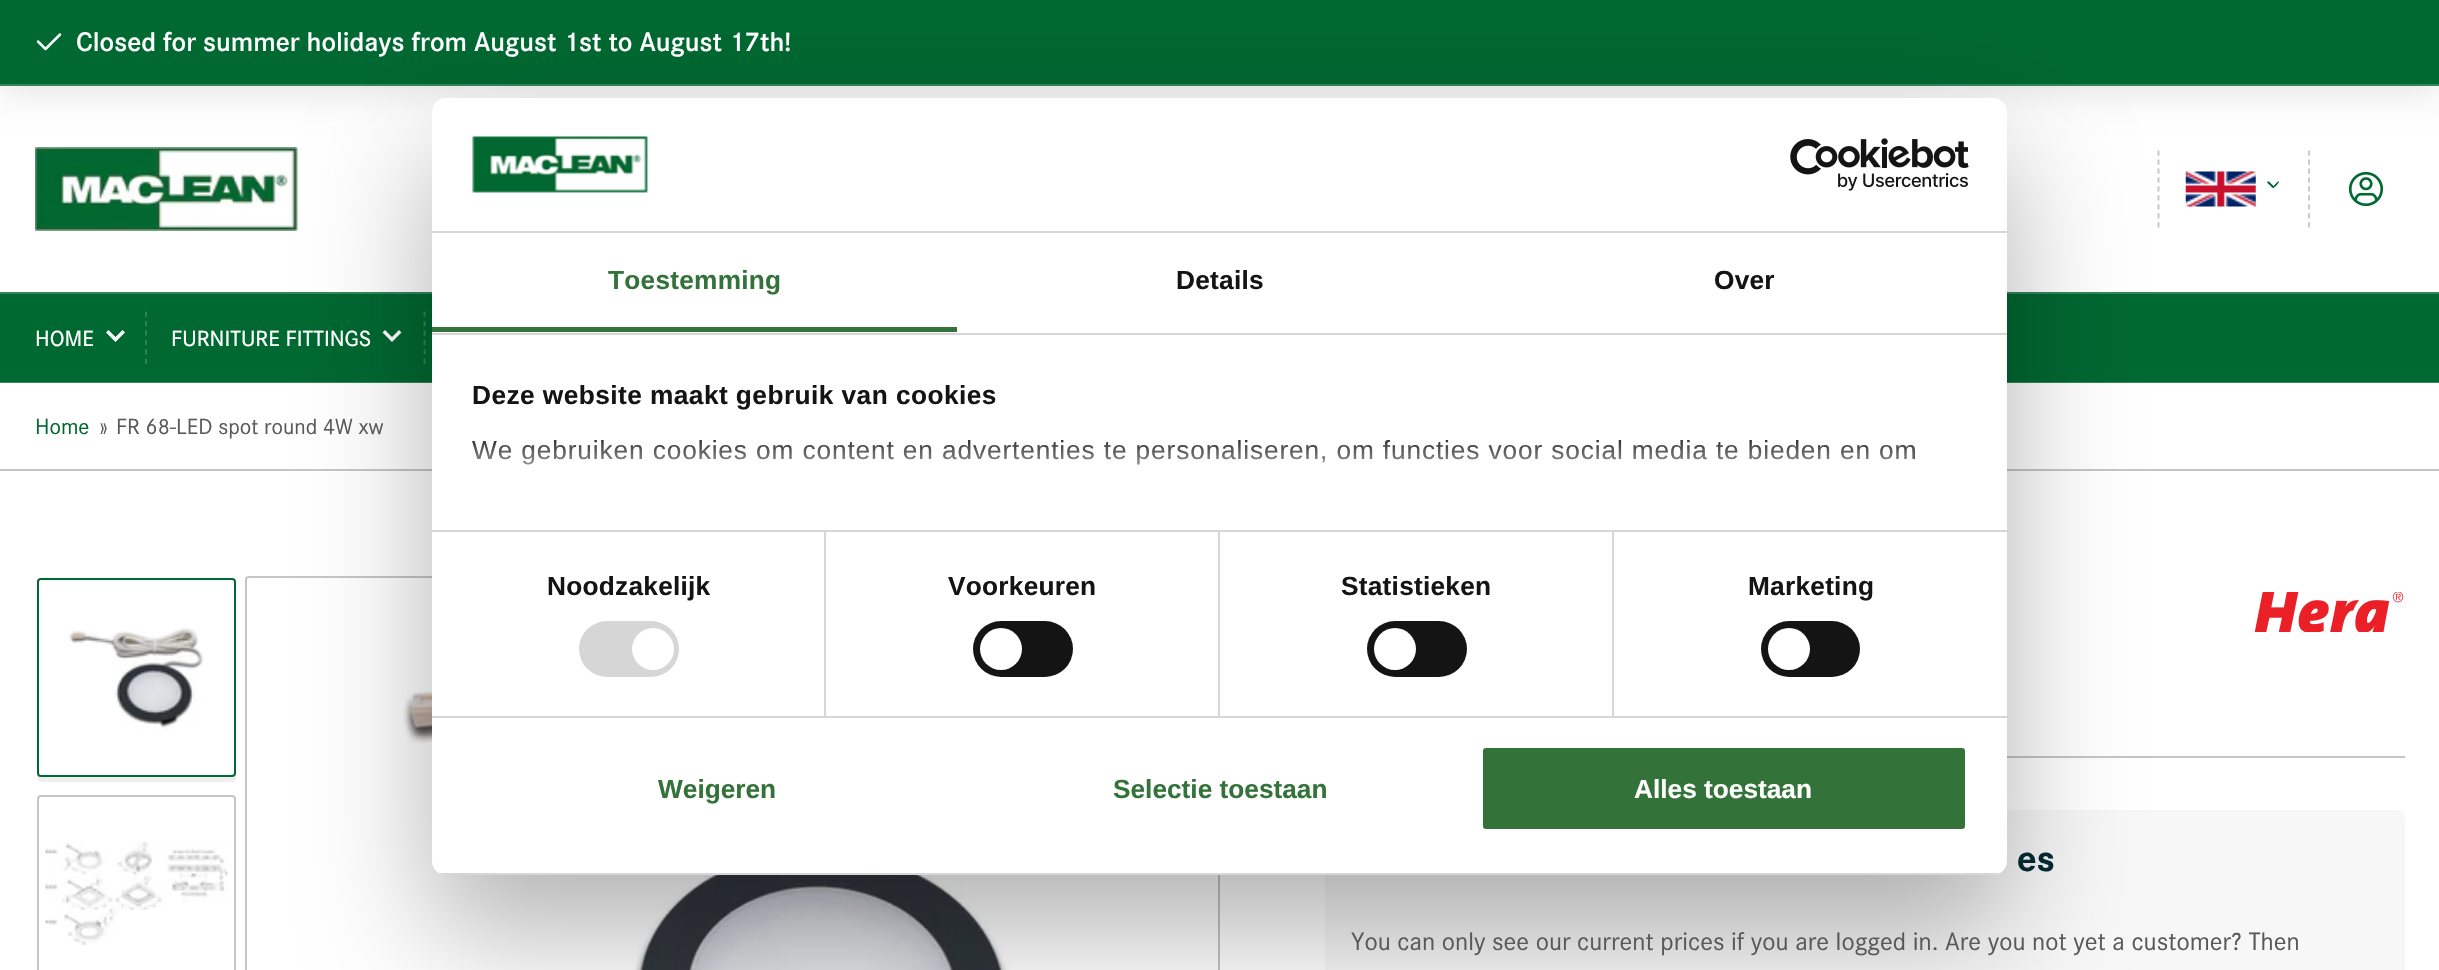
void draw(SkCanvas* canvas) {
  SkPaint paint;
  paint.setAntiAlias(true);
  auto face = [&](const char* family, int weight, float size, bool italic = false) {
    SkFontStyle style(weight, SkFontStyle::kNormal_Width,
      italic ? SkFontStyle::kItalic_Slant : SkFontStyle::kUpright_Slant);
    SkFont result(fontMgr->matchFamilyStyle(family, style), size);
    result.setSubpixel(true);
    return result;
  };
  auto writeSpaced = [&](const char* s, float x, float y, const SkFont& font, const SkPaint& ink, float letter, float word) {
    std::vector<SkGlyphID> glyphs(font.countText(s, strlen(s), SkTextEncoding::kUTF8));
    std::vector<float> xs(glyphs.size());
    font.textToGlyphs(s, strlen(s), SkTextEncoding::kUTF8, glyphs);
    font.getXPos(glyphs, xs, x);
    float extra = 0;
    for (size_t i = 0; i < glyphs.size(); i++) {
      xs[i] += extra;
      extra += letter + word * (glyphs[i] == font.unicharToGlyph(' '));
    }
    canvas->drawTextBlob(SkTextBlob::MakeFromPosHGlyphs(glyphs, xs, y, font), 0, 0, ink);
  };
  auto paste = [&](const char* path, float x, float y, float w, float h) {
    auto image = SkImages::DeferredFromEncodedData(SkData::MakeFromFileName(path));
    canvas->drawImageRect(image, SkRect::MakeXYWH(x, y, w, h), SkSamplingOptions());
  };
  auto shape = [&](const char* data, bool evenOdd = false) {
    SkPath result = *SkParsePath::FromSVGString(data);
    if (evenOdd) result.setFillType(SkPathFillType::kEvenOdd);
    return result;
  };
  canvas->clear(0xffffffff);
  paint.setColor(0x1a000000);
  paint.setMaskFilter(SkMaskFilter::MakeBlur(kNormal_SkBlurStyle, 17.5f));
  canvas->drawRect(SkRect::MakeXYWH(0, 7, 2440, 86), paint);
  paint.setMaskFilter(nullptr);
  paint.setColor(0xff006831);
  canvas->drawRect(SkRect::MakeXYWH(0, 0, 2439, 84), paint);
  paint.setColor(0xff33865a);
  canvas->drawRect(SkRect::MakeXYWH(0, 84, 2439, 2), paint);
  paste("img/1.png", 36, 33, 26, 18);
  paste("img/2.png", 35, 147, 263, 84);
  paint.setStroke(true);
  paint.setStrokeWidth(1.8f);
  paint.setColor(0xffc5c5c5);
  paint.setPathEffect(SkDashPathEffect::Make({{5.25f, 3.71f}}, 0));
  canvas->drawPath(shape("M2309 150.5V227.5"), paint);
  paint.setPathEffect(nullptr);
  paint.setPathEffect(SkDashPathEffect::Make({{5.25f, 3.71f}}, 0));
  canvas->drawPath(shape("M2158.5 150.5V227.5"), paint);
  paint.setPathEffect(nullptr);
  paste("img/3.png", 2185, 171, 71, 36);
  paint.setStroke(false);
  paint.setColor(0xff006831);
  canvas->drawPath(shape("M2269 181.5L2273 185.5C2275 187.5 2273.5 189 2271.5 187C2271 186 2266 182.5 2267.5 181.5Z"), paint);
  canvas->drawPath(shape("M2273 186.5L2277 182.5C2279 180.5 2280 181.5 2278 183.5C2277.5 184.5 2273.5 189 2272.5 187.5Z"), paint);
  paste("img/4.png", 2348, 171, 36, 36);
  {
    const struct { float x, y, w, h; SkColor color; } items[] = {
      {0, 294, 2439, 88, 0xff006831},
      {0, 382, 2439, 1, 0xff33865a},
      {0, 292, 2439, 2, 0xff33865a},
    };
    for (auto [x, y, w, h, color] : items) {
      paint.setColor(color);
      canvas->drawRect(SkRect::MakeXYWH(x, y, w, h), paint);
    }
  }
  paint.setStroke(true);
  paint.setStrokeWidth(3.5f);
  paint.setStrokeCap(SkPaint::kSquare_Cap);
  paint.setColor(0xffffffff);
  canvas->drawPath(shape("M122.5 332.5L115.5 339.5L108.5 332.5"), paint);
  paint.setStrokeWidth(1.8f);
  paint.setStrokeCap(SkPaint::kButt_Cap);
  paint.setColor(0xff33865a);
  paint.setPathEffect(SkDashPathEffect::Make({{5.25f, 4.2f}}, 0));
  canvas->drawPath(shape("M146 311.5V364"), paint);
  paint.setPathEffect(nullptr);
  paint.setStrokeWidth(3.5f);
  paint.setStrokeCap(SkPaint::kSquare_Cap);
  paint.setColor(0xffffffff);
  canvas->drawPath(shape("M399 332.5L392 339.5L385 332.5"), paint);
  paint.setStrokeWidth(1.8f);
  paint.setStrokeCap(SkPaint::kButt_Cap);
  paint.setColor(0xff33865a);
  paint.setPathEffect(SkDashPathEffect::Make({{5.25f, 4.2f}}, 0));
  canvas->drawPath(shape("M424.5 311.5V364"), paint);
  paint.setPathEffect(nullptr);
  paint.setStroke(false);
  paint.setColor(0xffc5c5c5);
  canvas->drawRect(SkRect::MakeXYWH(0, 469, 2439, 2), paint);
  paint.setStroke(true);
  paint.setStrokeWidth(2);
  canvas->drawRoundRect(SkRect::MakeXYWH(246, 577, 973, 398), 3, 3, paint);
  paste("img/9.png", 403, 674, 658, 296);
  paint.setStroke(false);
  canvas->drawRect(SkRect::MakeXYWH(2007, 756, 398, 2), paint);
  paint.setColor(0xfff7f7f7);
  canvas->drawRoundRect(SkRect::MakeXYWH(1325, 810, 1080, 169), 9, 9, paint);
  paint.setColor(0x4d000000);
  paint.setMaskFilter(SkMaskFilter::MakeBlur(kNormal_SkBlurStyle, 59.5f));
  canvas->drawRoundRect(SkRect::MakeXYWH(432, 154, 1575, 777), 14, 14, paint);
  paint.setMaskFilter(nullptr);
  paint.setColor(0xffffffff);
  canvas->drawRoundRect(SkRect::MakeXYWH(432, 98, 1575, 777), 14, 14, paint);
  paint.setColor(0xffd6d6d6);
  canvas->drawRect(SkRect::MakeXYWH(432, 231, 1575, 2), paint);
  paste("img/5.png", 471, 136, 177, 57);
  paste("img/6.png", 1790, 138, 179, 53);
  {
    const struct { float x, y, w, h; SkColor color; } items[] = {
      {432, 333, 1575, 2, 0xffd6d6d6},
      {432, 327, 525, 5, 0xff337239},
      {432, 530, 1575, 2, 0xffd6d6d6},
      {432, 716, 1575, 2, 0xffd6d6d6},
      {824, 532, 2, 184, 0xffd6d6d6},
    };
    for (auto [x, y, w, h, color] : items) {
      paint.setColor(color);
      canvas->drawRect(SkRect::MakeXYWH(x, y, w, h), paint);
    }
  }
  canvas->drawRoundRect(SkRect::MakeXYWH(579, 621, 100, 56), 28, 28, paint);
  paint.setColor(0xffffffff);
  canvas->drawCircle(653, 649, 21, paint);
  paint.setColor(0xffd6d6d6);
  canvas->drawRect(SkRect::MakeXYWH(1218, 532, 2, 184), paint);
  paint.setColor(0xff141414);
  canvas->drawRoundRect(SkRect::MakeXYWH(973, 621, 100, 56), 28, 28, paint);
  paint.setColor(0xffffffff);
  canvas->drawCircle(1001, 649, 21, paint);
  paint.setColor(0xffd6d6d6);
  canvas->drawRect(SkRect::MakeXYWH(1612, 532, 2, 184), paint);
  paint.setColor(0xff141414);
  canvas->drawRoundRect(SkRect::MakeXYWH(1367, 621, 100, 56), 28, 28, paint);
  paint.setColor(0xffffffff);
  canvas->drawCircle(1395, 649, 21, paint);
  paint.setColor(0xff141414);
  canvas->drawRoundRect(SkRect::MakeXYWH(1761, 621, 99, 56), 28, 28, paint);
  paint.setColor(0xffffffff);
  canvas->drawCircle(1789, 649, 21, paint);
  canvas->save();
  canvas->clipPath(shape("M446 98H1993C2000.5 98 2007 104.5 2007 112V861C2007 868.5 2000.5 875 1993 875H446C438.5 875 432 868.5 432 861V112C432 104.5 438.5 98 446 98Z"), true);
  paint.setColor(0xffd6d6d6);
  canvas->drawRect(SkRect::MakeXYWH(432, 873, 1575, 2), paint);
  canvas->restore();
  paint.setColor(0xff337239);
  canvas->drawRoundRect(SkRect::MakeXYWH(1481, 746, 486, 85), 5, 5, paint);
  paint.setStroke(true);
  paint.setStrokeWidth(4);
  paint.setColor(0xffffffff);
  canvas->drawRoundRect(SkRect::MakeXYWH(1481, 746, 486, 85), 5, 5, paint);
  paint.setStroke(false);
  paint.setColor(0xffeeeeee);
  canvas->drawPath(shape("M37 775V778C37 780 39 782 41 782H232C234 782 236 780 236 778V775C235 776 234 777 233 777H40C39 777 38 776 37 775Z"), paint);
  paint.setStroke(true);
  paint.setStrokeWidth(2);
  paint.setColor(0xff006831);
  canvas->drawRoundRect(SkRect::MakeXYWH(38, 579, 197, 197), 3, 3, paint);
  paste("img/7.png", 65, 628, 139, 102);
  paint.setColor(0xffc5c5c5);
  canvas->drawRoundRect(SkRect::MakeXYWH(38, 796, 197, 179), 3, 3, paint);
  paste("img/8.png", 45, 841, 183, 104);
  paste("img/10.png", 2254, 592, 150, 40);
  auto f0 = face("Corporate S", 600, 28);
  paint.setStroke(false);
  paint.setColor(0xffffffff);
  canvas->drawString("Closed for summer holidays from August 1st to August 17th!", 76, 51, f0, paint);
  auto f1 = face("Corporate S", 500, 22.75f);
  canvas->drawString("HOME", 35, 346, f1, paint);
  canvas->drawString("FURNITURE FITTINGS", 171, 346, f1, paint);
  auto f2 = face("Liberation Sans", 700, 26.25f);
  paint.setColor(0xff337239);
  writeSpaced("Toestemming", 608, 289, f2, paint, 0.25f, 0);
  paint.setColor(0xff141414);
  writeSpaced("Details", 1176, 289, f2, paint, 0.25f, 0);
  writeSpaced("Over", 1714, 289, f2, paint, 0.25f, 0);
  writeSpaced("Deze website maakt gebruik van cookies", 472, 404, f2, paint, 0.45f, 0);
  auto f3 = face("Liberation Sans", 400, 26.25f);
  writeSpaced("We gebruiken cookies om content en advertenties te personaliseren, om functies voor social media te bieden en om", 472, 459, f3, paint, 0.88f, 0);
  {
    const SkColor colors[] = {0xffffffff, 0xccffffff, 0x00ffffff};
    const float stops[] = {0, 0.5f, 1};
    const SkPoint ends[] = {{1202, 530}, {1202, 432}};
    paint.setShader(SkGradientShader::MakeLinear(ends, colors, stops, 3, SkTileMode::kClamp));
    paint.setAlpha(255);
  }
  canvas->drawRect(SkRect::MakeXYWH(471, 440, 1443, 25), paint);
  paint.setShader(nullptr);
  paint.setColor(0xff141414);
  {
    const struct { const char* s; float x, y; } items[] = {
      {"Noodzakelijk", 547, 595},
      {"Voorkeuren", 948, 595},
      {"Statistieken", 1341, 595},
      {"Marketing", 1748, 595},
    };
    for (auto [s, x, y] : items) {
      writeSpaced(s, x, y, f2, paint, 0.25f, 0);
    }
  }
  paint.setColor(0xff337239);
  canvas->drawString("Weigeren", 658, 798, f2, paint);
  canvas->drawString("Selectie toestaan", 1113, 798, f2, paint);
  paint.setColor(0xffffffff);
  canvas->drawString("Alles toestaan", 1634, 798, f2, paint);
  auto f4 = face("Corporate S", 400, 22.75f);
  paint.setColor(0xff006831);
  canvas->drawString("Home", 35, 434, f4, paint);
  paint.setColor(0xff595959);
  canvas->drawString("»", 99, 434, f4, paint);
  canvas->drawString("FR 68-LED spot round 4W xw", 116, 434, f4, paint);
  auto f5 = face("Corporate S", 700, 38);
  paint.setColor(0xff052830);
  canvas->drawString("es", 2017, 871, f5, paint);
  auto f6 = face("Corporate S", 400, 26.25f);
  paint.setColor(0xff595959);
  canvas->drawString("You can only see our current prices if you are logged in. Are you not yet a customer? Then", 1351, 950, f6, paint);
}
